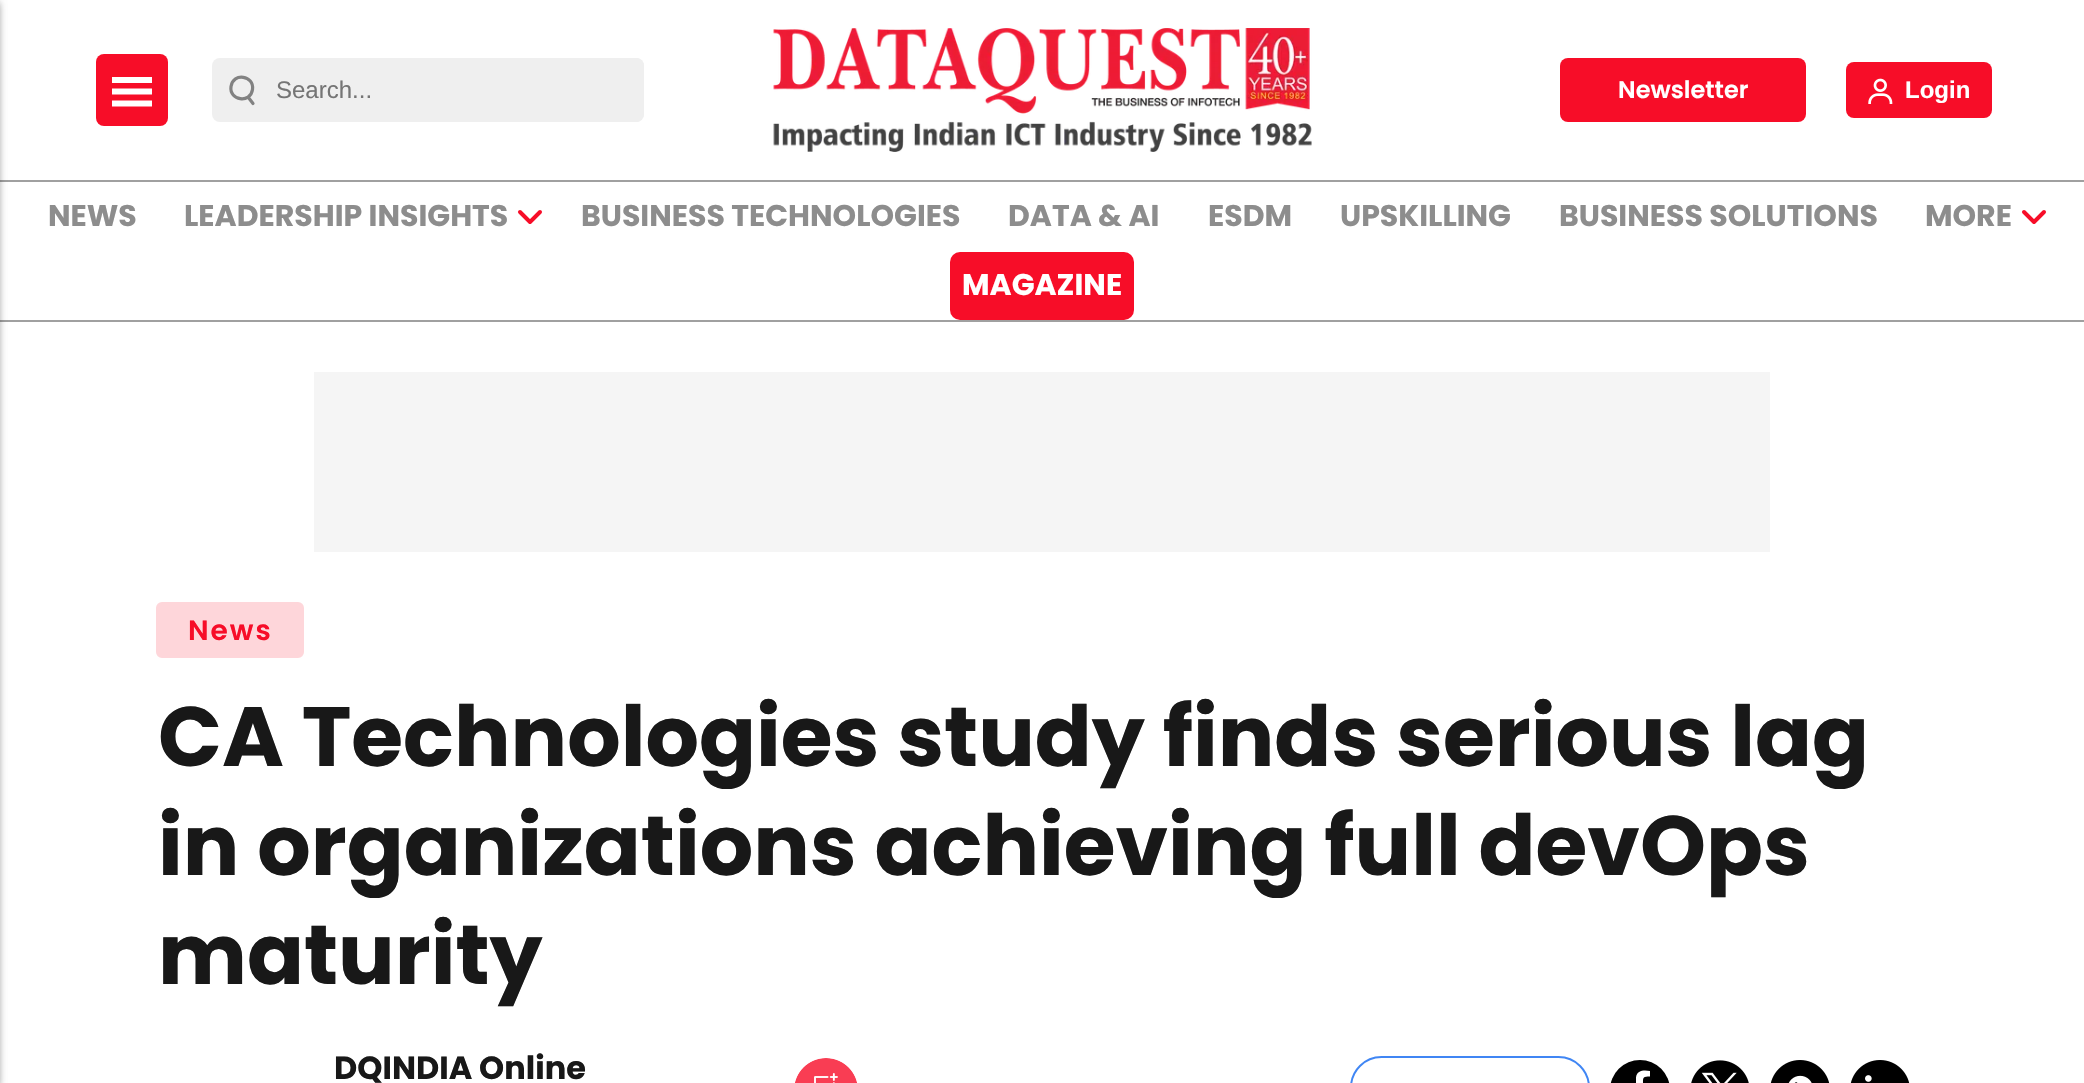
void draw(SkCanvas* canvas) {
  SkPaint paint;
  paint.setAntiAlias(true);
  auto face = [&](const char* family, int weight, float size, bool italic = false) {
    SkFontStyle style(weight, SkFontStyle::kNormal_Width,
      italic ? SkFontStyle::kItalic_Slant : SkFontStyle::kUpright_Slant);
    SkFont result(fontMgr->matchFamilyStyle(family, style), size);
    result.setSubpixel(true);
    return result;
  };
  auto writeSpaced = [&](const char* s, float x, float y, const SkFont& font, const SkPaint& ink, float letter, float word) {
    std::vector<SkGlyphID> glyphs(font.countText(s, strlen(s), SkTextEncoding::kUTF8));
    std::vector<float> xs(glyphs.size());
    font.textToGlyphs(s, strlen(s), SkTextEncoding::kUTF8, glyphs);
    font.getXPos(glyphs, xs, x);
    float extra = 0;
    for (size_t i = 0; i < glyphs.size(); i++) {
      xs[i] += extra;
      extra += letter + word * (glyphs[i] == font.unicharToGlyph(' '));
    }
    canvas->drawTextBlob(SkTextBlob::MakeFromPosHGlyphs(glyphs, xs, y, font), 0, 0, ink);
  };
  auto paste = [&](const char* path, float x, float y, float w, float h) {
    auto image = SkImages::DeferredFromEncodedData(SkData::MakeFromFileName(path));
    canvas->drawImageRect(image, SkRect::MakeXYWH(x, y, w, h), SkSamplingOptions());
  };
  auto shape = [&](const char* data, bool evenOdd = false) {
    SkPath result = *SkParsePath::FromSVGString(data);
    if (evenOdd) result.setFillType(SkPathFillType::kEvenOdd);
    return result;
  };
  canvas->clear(0xffffffff);
  paint.setColor(0xffa0a0a0);
  canvas->drawRect(SkRect::MakeXYWH(0, 180, 2084, 2), paint);
  canvas->drawRect(SkRect::MakeXYWH(0, 320, 2084, 2), paint);
  paint.setColor(0x38000000);
  paint.setMaskFilter(SkMaskFilter::MakeBlur(kNormal_SkBlurStyle, 3));
  canvas->drawRect(SkRect::MakeXYWH(-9, 4, 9, 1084), paint);
  paint.setMaskFilter(nullptr);
  paint.setColor(0x1f000000);
  paint.setMaskFilter(SkMaskFilter::MakeBlur(kNormal_SkBlurStyle, 3));
  canvas->drawRect(SkRect::MakeXYWH(-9, 0, 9, 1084), paint);
  paint.setMaskFilter(nullptr);
  paint.setColor(0xfff70d28);
  canvas->drawRoundRect(SkRect::MakeXYWH(96, 54, 72, 72), 8, 8, paint);
  paint.setColor(0xffffffff);
  canvas->drawRect(SkRect::MakeXYWH(112, 77, 40, 6), paint);
  paint.setStroke(true);
  paint.setStrokeWidth(6);
  canvas->drawPath(shape("M112 103.5H152M112 91.5H152"), paint);
  paint.setStroke(false);
  paint.setColor(0xffefefef);
  canvas->drawRoundRect(SkRect::MakeXYWH(212, 58, 432, 64), 8, 8, paint);
  paint.setStroke(true);
  paint.setStrokeWidth(3.2f);
  paint.setStrokeCap(SkPaint::kRound_Cap);
  paint.setStrokeJoin(SkPaint::kRound_Join);
  paint.setColor(0xff828282);
  canvas->drawPath(shape("M252.5 89.5C250.5 104 229 100.5 231 86.5C233 72 254.5 75.5 252.5 89.5ZM253 103.5L248 97"), paint);
  paint.setStroke(false);
  paint.setColor(0xffefefef);
  canvas->drawRoundRect(SkRect::MakeXYWH(272, 58, 372, 64), 8, 8, paint);
  paste("img/1.png", 773, 28, 539, 124);
  paint.setColor(0xfff70d28);
  canvas->drawRoundRect(SkRect::MakeXYWH(1560, 58, 246, 64), 8, 8, paint);
  canvas->drawRoundRect(SkRect::MakeXYWH(1846, 62, 146, 56), 8, 8, paint);
  paste("img/2.png", 1868, 78, 25, 26);
  paint.setStroke(true);
  paint.setStrokeWidth(4);
  canvas->drawPath(shape("M520 212L530 222L540 212"), paint);
  canvas->drawPath(shape("M2024 212L2034 222L2044 212"), paint);
  paint.setStroke(false);
  canvas->drawRoundRect(SkRect::MakeXYWH(950, 252, 184, 68), 10, 10, paint);
  paint.setColor(0xfff5f5f5);
  canvas->drawRect(SkRect::MakeXYWH(314, 372, 1456, 180), paint);
  paint.setColor(0xfffed6da);
  canvas->drawRoundRect(SkRect::MakeXYWH(155, 601, 150, 58), 7, 7, paint);
  paint.setStroke(true);
  paint.setStrokeWidth(2);
  paint.setStrokeCap(SkPaint::kButt_Cap);
  paint.setStrokeJoin(SkPaint::kMiter_Join);
  paint.setColor(0xffffffff);
  canvas->drawRoundRect(SkRect::MakeXYWH(155, 601, 150, 58), 7, 7, paint);
  paste("img/3.png", 795, 1058, 62, 25);
  paint.setColor(0xff4086f4);
  canvas->drawRoundRect(SkRect::MakeXYWH(1351, 1057, 238, 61), 33, 33, paint);
  paint.setStroke(false);
  paint.setColor(0xff000000);
  canvas->drawCircle(1640, 1090, 30, paint);
  paint.setColor(0xffffffff);
  canvas->drawPath(shape("M1648.5 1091.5L1649.5 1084.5H1643C1643 1077.5 1642.5 1076.5 1650 1076.5V1071C1644 1070 1637 1070 1636 1077.5V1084.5H1629.5V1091.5H1636V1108H1643V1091.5Z"), paint);
  paste("img/4.png", 1691, 1060, 58, 23);
  paste("img/5.png", 1770, 1060, 60, 23);
  paste("img/6.png", 1850, 1060, 60, 23);
  auto f0 = face("Liberation Sans", 400, 24);
  paint.setColor(0xff757575);
  canvas->drawString("Search...", 276, 98, f0, paint);
  auto f1 = face("Poppins", 600, 24);
  paint.setColor(0xffffffff);
  canvas->drawString("Newsletter", 1618, 98, f1, paint);
  auto f2 = face("Liberation Sans", 700, 24);
  canvas->drawString("Login", 1905, 98, f2, paint);
  auto f3 = face("Poppins", 700, 30);
  paint.setColor(0xff8d8d8d);
  {
    const struct { const char* s; float x, y; } items[] = {
      {"NEWS", 48, 226},
      {"LEADERSHIP INSIGHTS", 184, 226},
      {"BUSINESS TECHNOLOGIES", 581, 226},
      {"DATA & AI", 1008, 226},
      {"ESDM", 1208, 226},
      {"UPSKILLING", 1340, 226},
      {"BUSINESS SOLUTIONS", 1559, 226},
      {"MORE", 1925, 226},
    };
    for (auto [s, x, y] : items) {
      canvas->drawString(s, x, y, f3, paint);
    }
  }
  paint.setColor(0xffffffff);
  canvas->drawString("MAGAZINE", 962, 295, f3, paint);
  auto f4 = face("Poppins", 600, 28);
  paint.setColor(0xfff70d28);
  writeSpaced("News", 188, 640, f4, paint, 2, 0);
  auto f5 = face("Poppins", 700, 84);
  paint.setColor(0xff181818);
  {
    const struct { const char* s; float x, y; } items[] = {
      {"CA Technologies study finds serious lag", 158, 766},
      {"in organizations achieving full devOps", 158, 875},
      {"maturity", 158, 984},
    };
    for (auto [s, x, y] : items) {
      canvas->drawString(s, x, y, f5, paint);
    }
  }
  auto f6 = face("Poppins", 700, 32);
  canvas->drawString("DQINDIA Online", 334, 1079, f6, paint);
}
